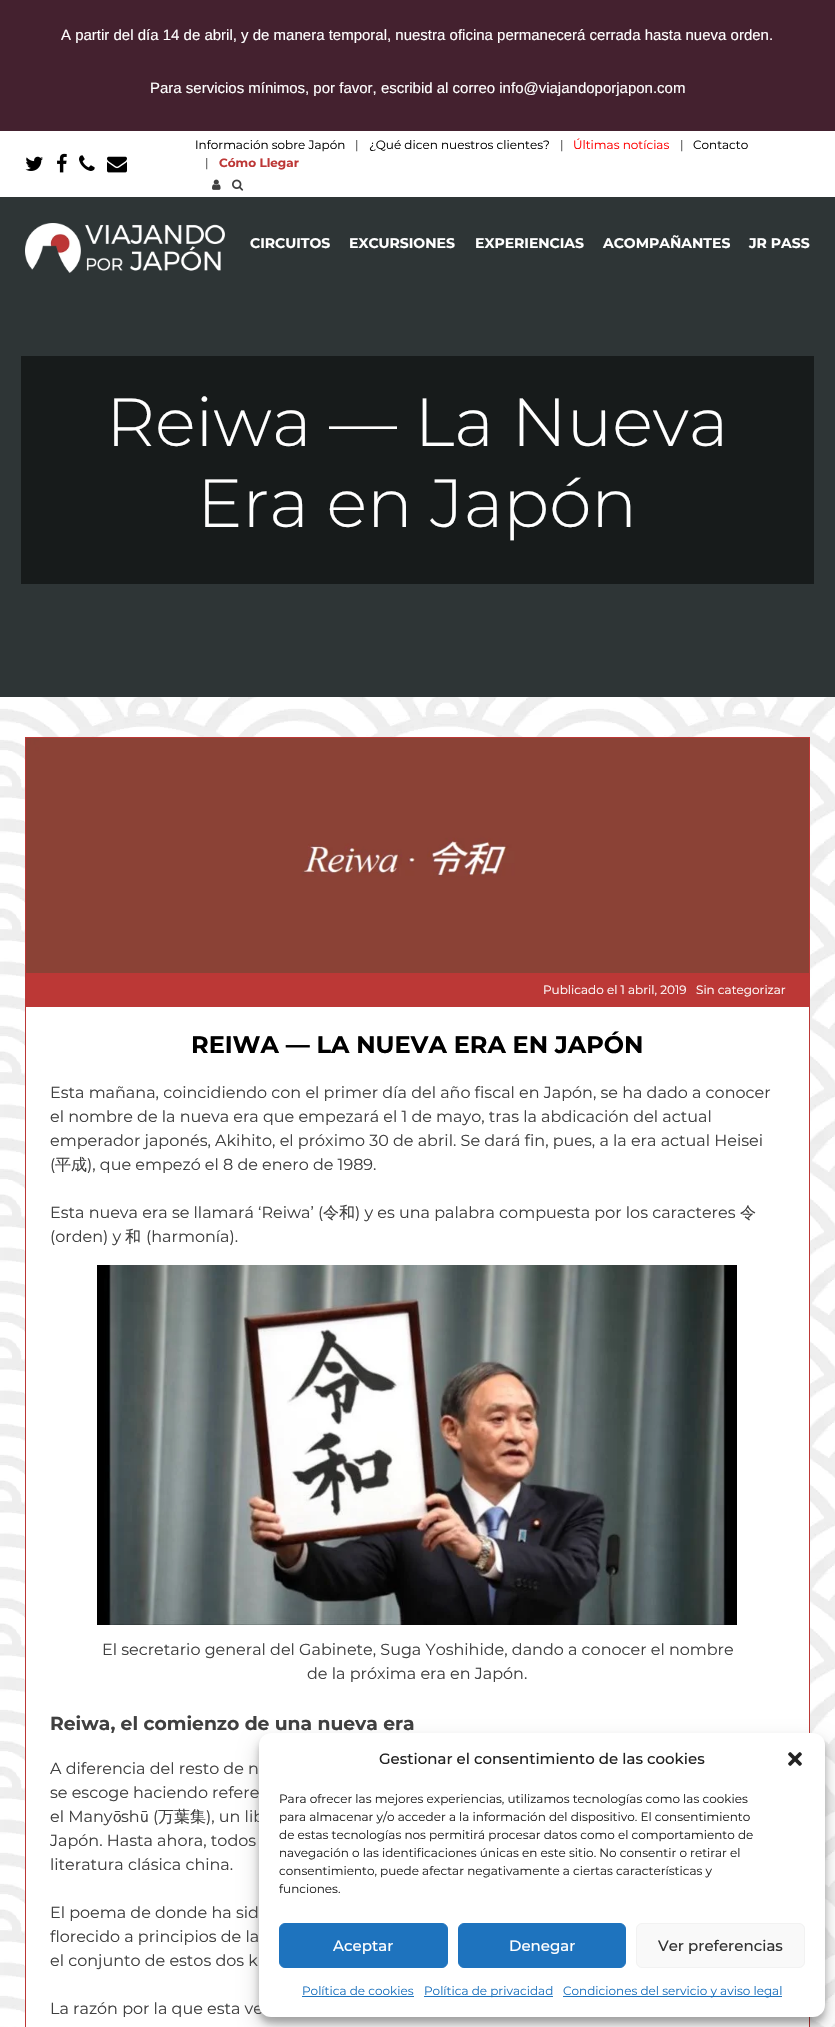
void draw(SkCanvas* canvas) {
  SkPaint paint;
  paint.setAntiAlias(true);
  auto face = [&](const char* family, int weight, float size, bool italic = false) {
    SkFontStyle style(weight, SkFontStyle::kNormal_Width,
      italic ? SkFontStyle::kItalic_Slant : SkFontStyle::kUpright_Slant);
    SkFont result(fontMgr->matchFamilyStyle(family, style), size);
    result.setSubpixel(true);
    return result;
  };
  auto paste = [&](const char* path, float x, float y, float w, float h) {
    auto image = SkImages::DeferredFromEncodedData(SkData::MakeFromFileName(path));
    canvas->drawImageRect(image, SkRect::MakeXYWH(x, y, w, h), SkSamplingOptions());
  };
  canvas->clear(0xffffffff);
  paste("img/1.png", 0, 697, 835, 1330);
  paint.setColor(0xff44212f);
  canvas->drawRect(SkRect::MakeXYWH(0, 0, 835, 131), paint);
  paint.setColor(0xff2e3536);
  canvas->drawRect(SkRect::MakeXYWH(0, 197, 835, 500), paint);
  paste("img/2.png", 25, 156, 18, 15);
  paste("img/3.png", 57, 153, 10, 20);
  paste("img/4.png", 79, 155, 16, 16);
  paste("img/5.png", 107, 156, 20, 17);
  paste("img/6.png", 212, 179, 9, 11);
  paste("img/7.png", 232, 179, 12, 12);
  paste("img/8.png", 25, 223, 200, 50);
  paint.setColor(0xff171b1b);
  canvas->drawRect(SkRect::MakeXYWH(21, 356, 793, 228), paint);
  paint.setStroke(true);
  paint.setStrokeWidth(1);
  paint.setColor(0xffbc3836);
  canvas->drawRect(SkRect::MakeXYWH(25.5f, 737.5f, 784, 236), paint);
  paste("img/9.png", 26, 738, 783, 235);
  paint.setStroke(false);
  canvas->drawRect(SkRect::MakeXYWH(25, 974, 785, 32), paint);
  paint.setColor(0xffffffff);
  canvas->drawRect(SkRect::MakeXYWH(25.5f, 1006.5f, 784, 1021), paint);
  paint.setStroke(true);
  paint.setColor(0xffbc3836);
  canvas->drawRect(SkRect::MakeXYWH(25.5f, 1006.5f, 784, 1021), paint);
  paste("img/10.png", 97, 1265, 640, 360);
  paint.setStroke(false);
  paint.setColor(0x3b000000);
  paint.setMaskFilter(SkMaskFilter::MakeBlur(kNormal_SkBlurStyle, 3));
  canvas->drawRoundRect(SkRect::MakeXYWH(259, 1739, 566, 284), 12, 12, paint);
  paint.setMaskFilter(nullptr);
  paint.setColor(0x30000000);
  paint.setMaskFilter(SkMaskFilter::MakeBlur(kNormal_SkBlurStyle, 10));
  canvas->drawRoundRect(SkRect::MakeXYWH(259, 1743, 566, 284), 12, 12, paint);
  paint.setMaskFilter(nullptr);
  auto f0 = face("Liberation Sans", 400, 15);
  paint.setColor(0xffffffff);
  canvas->drawString("A partir del día 14 de abril, y de manera temporal, nuestra oficina permanecerá cerrada hasta nueva orden.", 61, 40, f0, paint);
  canvas->drawString("Para servicios mínimos, por favor, escribid al correo info@viajandoporjapon.com", 150, 93, f0, paint);
  auto f1 = face("Montserrat", 400, 12);
  paint.setColor(0xff000000);
  canvas->drawString("Información sobre Japón", 195, 149, f1, paint);
  paint.setColor(0xff404040);
  canvas->drawString("|", 355, 149, f1, paint);
  paint.setColor(0xff000000);
  canvas->drawString("¿Qué dicen nuestros clientes?", 369, 149, f1, paint);
  paint.setColor(0xff404040);
  canvas->drawString("|", 560, 149, f1, paint);
  paint.setColor(0xffff0000);
  canvas->drawString("Últimas notícias", 573, 149, f1, paint);
  paint.setColor(0xff404040);
  canvas->drawString("|", 680, 149, f1, paint);
  paint.setColor(0xff000000);
  canvas->drawString("Contacto", 693, 149, f1, paint);
  paint.setColor(0xff404040);
  canvas->drawString("|", 205, 167, f1, paint);
  auto f2 = face("Montserrat", 700, 12);
  paint.setColor(0xffbd3736);
  canvas->drawString("Cómo Llegar", 219, 167, f2, paint);
  auto f3 = face("Montserrat", 700, 14);
  paint.setColor(0xffffffff);
  {
    const struct { const char* s; float x, y; } items[] = {
      {"CIRCUITOS", 250, 248},
      {"EXCURSIONES", 349, 248},
      {"EXPERIENCIAS", 475, 248},
      {"ACOMPAÑANTES", 603, 248},
      {"JR PASS", 749, 248},
    };
    for (auto [s, x, y] : items) {
      canvas->drawString(s, x, y, f3, paint);
    }
  }
  auto f4 = face("Montserrat", 300, 68);
  canvas->drawString("Reiwa — La Nueva", 106, 446, f4, paint);
  canvas->drawString("Era en Japón", 197, 527, f4, paint);
  canvas->drawString("Publicado el 1 abril, 2019", 543, 994, f1, paint);
  canvas->drawString("Sin categorizar", 696, 994, f1, paint);
  auto f5 = face("Montserrat", 700, 24);
  paint.setColor(0xff000000);
  canvas->drawString("REIWA — LA NUEVA ERA EN JAPÓN", 191, 1053, f5, paint);
  auto f6 = face("Montserrat", 400, 16);
  paint.setColor(0xff404040);
  {
    const struct { const char* s; float x, y; } items[] = {
      {"Esta mañana, coincidiendo con el primer día del año fiscal en Japón, se ha dado a conocer", 50, 1098},
      {"el nombre de la nueva era que empezará el 1 de mayo, tras la abdicación del actual", 50, 1122},
      {"emperador japonés, Akihito, el próximo 30 de abril. Se dará fin, pues, a la era actual Heisei", 50, 1146},
      {"(", 50, 1170},
    };
    for (auto [s, x, y] : items) {
      canvas->drawString(s, x, y, f6, paint);
    }
  }
  auto f7 = face("WenQuanYi Zen Hei", 500, 16);
  canvas->drawString("平成", 55, 1170, f7, paint);
  canvas->drawString("), que empezó el 8 de enero de 1989.", 87, 1170, f6, paint);
  canvas->drawString("Esta nueva era se llamará ‘Reiwa’ (", 50, 1218, f6, paint);
  canvas->drawString("令和", 323, 1218, f7, paint);
  canvas->drawString(") y es una palabra compuesta por los caracteres", 355, 1218, f6, paint);
  canvas->drawString("令", 740, 1218, f7, paint);
  canvas->drawString("(orden) y", 50, 1242, f6, paint);
  canvas->drawString("和", 125, 1242, f7, paint);
  {
    const struct { const char* s; float x, y; } items[] = {
      {"(harmonía).", 146, 1242},
      {"El secretario general del Gabinete, Suga Yoshihide, dando a conocer el nombre", 102, 1655},
      {"de la próxima era en Japón.", 307, 1679},
    };
    for (auto [s, x, y] : items) {
      canvas->drawString(s, x, y, f6, paint);
    }
  }
  auto f8 = face("Montserrat", 700, 18.75f);
  canvas->drawString("Reiwa, el comienzo de una nueva era", 50, 1730, f8, paint);
  {
    const struct { const char* s; float x, y; } items[] = {
      {"A diferencia del resto de n", 50, 1774},
      {"se escoge haciendo refere", 50, 1798},
      {"el Many", 50, 1822},
    };
    for (auto [s, x, y] : items) {
      canvas->drawString(s, x, y, f6, paint);
    }
  }
  canvas->drawString("ō", 113, 1822, f7, paint);
  canvas->drawString("sh", 121, 1822, f6, paint);
  canvas->drawString("ū", 140, 1822, f7, paint);
  canvas->drawString("(", 153, 1822, f6, paint);
  canvas->drawString("万葉集", 158, 1822, f7, paint);
  {
    const struct { const char* s; float x, y; } items[] = {
      {"), un lib", 206, 1822},
      {"Japón. Hasta ahora, todos", 50, 1846},
      {"literatura clásica china.", 50, 1870},
      {"El poema de donde ha sid", 50, 1918},
      {"florecido a principios de la", 50, 1942},
      {"el conjunto de estos dos k", 50, 1966},
      {"La razón por la que esta ve", 50, 2014},
    };
    for (auto [s, x, y] : items) {
      canvas->drawString(s, x, y, f6, paint);
    }
  }
  paint.setColor(0xffffffff);
  canvas->drawRoundRect(SkRect::MakeXYWH(259, 1733, 566, 284), 12, 12, paint);
  auto f9 = face("Montserrat", 500, 15);
  paint.setColor(0xff222222);
  canvas->drawString("Gestionar el consentimiento de las cookies", 379, 1764, f9, paint);
  paste("img/11.png", 788, 1752, 14, 14);
  {
    const struct { const char* s; float x, y; } items[] = {
      {"Para ofrecer las mejores experiencias, utilizamos tecnologías como las cookies", 279, 1803},
      {"para almacenar y/o acceder a la información del dispositivo. El consentimiento", 279, 1821},
      {"de estas tecnologías nos permitirá procesar datos como el comportamiento de", 279, 1839},
      {"navegación o las identificaciones únicas en este sitio. No consentir o retirar el", 279, 1857},
      {"consentimiento, puede afectar negativamente a ciertas características y", 279, 1875},
      {"funciones.", 279, 1893},
    };
    for (auto [s, x, y] : items) {
      canvas->drawString(s, x, y, f1, paint);
    }
  }
  paint.setColor(0xff1e73be);
  canvas->drawRoundRect(SkRect::MakeXYWH(279.5f, 1923.5f, 168, 44), 5.5f, 5.5f, paint);
  paint.setStroke(true);
  canvas->drawRoundRect(SkRect::MakeXYWH(279.5f, 1923.5f, 168, 44), 5.5f, 5.5f, paint);
  paint.setStroke(false);
  paint.setColor(0xffffffff);
  canvas->drawString("Aceptar", 333, 1951, f9, paint);
  paint.setColor(0xff1e73be);
  canvas->drawRoundRect(SkRect::MakeXYWH(458.5f, 1923.5f, 167, 44), 5.5f, 5.5f, paint);
  paint.setStroke(true);
  canvas->drawRoundRect(SkRect::MakeXYWH(458.5f, 1923.5f, 167, 44), 5.5f, 5.5f, paint);
  paint.setStroke(false);
  paint.setColor(0xffffffff);
  canvas->drawString("Denegar", 509, 1951, f9, paint);
  paint.setColor(0xfff9f9f9);
  canvas->drawRoundRect(SkRect::MakeXYWH(636.5f, 1923.5f, 168, 44), 5.5f, 5.5f, paint);
  paint.setStroke(true);
  paint.setColor(0xfff2f2f2);
  canvas->drawRoundRect(SkRect::MakeXYWH(636.5f, 1923.5f, 168, 44), 5.5f, 5.5f, paint);
  paint.setStroke(false);
  paint.setColor(0xff333333);
  canvas->drawString("Ver preferencias", 658, 1951, f9, paint);
  paint.setColor(0xff1e73be);
  canvas->drawString("Política de cookies", 302, 1995, f1, paint);
  canvas->drawRect(SkRect::MakeXYWH(302, 1996, 112, 1), paint);
  canvas->drawRect(SkRect::MakeXYWH(424, 1996, 129, 1), paint);
  canvas->drawString("Política de privacidad", 424, 1995, f1, paint);
  canvas->drawRect(SkRect::MakeXYWH(563, 1996, 219, 1), paint);
  canvas->drawString("Condiciones del servicio y aviso legal", 563, 1995, f1, paint);
}
